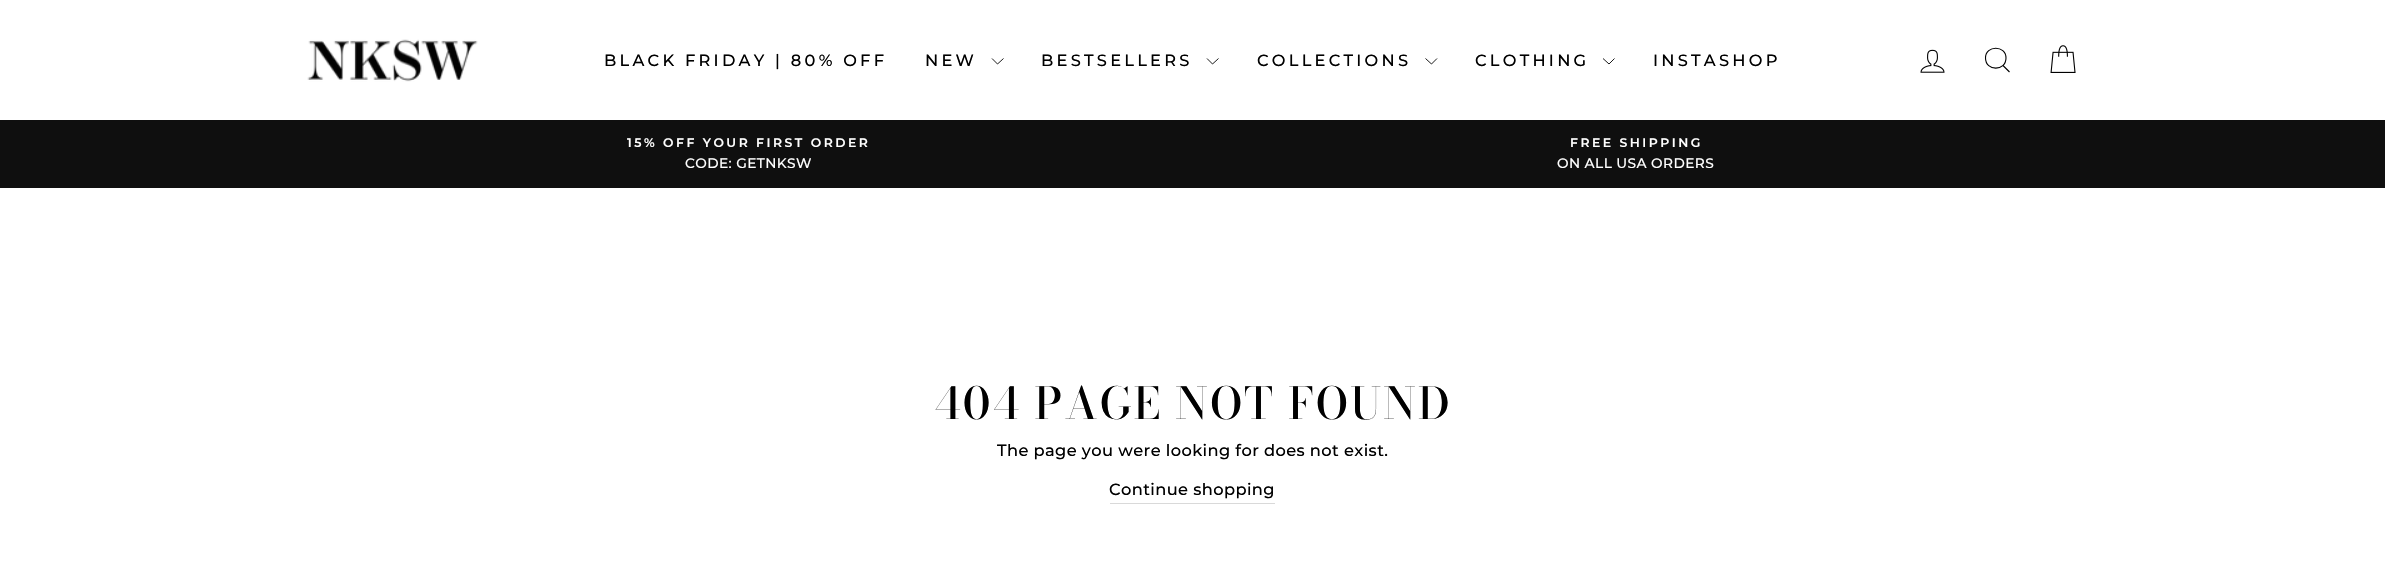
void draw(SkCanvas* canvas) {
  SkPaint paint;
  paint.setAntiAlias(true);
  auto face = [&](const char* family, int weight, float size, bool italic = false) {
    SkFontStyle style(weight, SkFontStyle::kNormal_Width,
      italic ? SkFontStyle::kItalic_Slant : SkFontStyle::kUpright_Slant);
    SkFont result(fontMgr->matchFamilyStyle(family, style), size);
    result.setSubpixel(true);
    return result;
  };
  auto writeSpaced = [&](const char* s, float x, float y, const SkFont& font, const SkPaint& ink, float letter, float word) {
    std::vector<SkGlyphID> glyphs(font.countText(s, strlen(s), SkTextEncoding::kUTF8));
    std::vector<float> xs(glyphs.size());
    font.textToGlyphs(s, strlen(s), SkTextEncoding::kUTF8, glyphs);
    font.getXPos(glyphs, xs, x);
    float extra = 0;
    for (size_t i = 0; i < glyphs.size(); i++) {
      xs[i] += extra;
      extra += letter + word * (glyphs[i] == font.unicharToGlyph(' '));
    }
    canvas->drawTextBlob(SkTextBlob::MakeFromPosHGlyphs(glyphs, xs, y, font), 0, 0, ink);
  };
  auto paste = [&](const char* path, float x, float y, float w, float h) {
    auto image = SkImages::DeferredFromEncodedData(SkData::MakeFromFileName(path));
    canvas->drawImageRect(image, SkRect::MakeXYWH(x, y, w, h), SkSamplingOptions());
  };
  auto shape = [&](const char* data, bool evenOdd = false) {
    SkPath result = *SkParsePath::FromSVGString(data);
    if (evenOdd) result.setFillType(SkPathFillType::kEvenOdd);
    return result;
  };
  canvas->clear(0xffffffff);
  paste("img/1.png", 307, 39, 171, 43);
  paint.setStroke(true);
  paint.setStrokeWidth(0.9f);
  paint.setColor(0xff000000);
  canvas->drawPath(shape("M992 58.5L997.5 64L1003.5 58.5"), paint);
  canvas->drawPath(shape("M1207 58.5L1212.5 64L1218.5 58.5"), paint);
  canvas->drawPath(shape("M1425.5 58.5L1431.5 64L1437 58.5"), paint);
  canvas->drawPath(shape("M1603 58.5L1609 64L1614.5 58.5"), paint);
  paste("img/2.png", 1920, 49, 25, 24);
  paint.setStrokeWidth(1.1f);
  canvas->drawPath(shape("M2006 58C2006 71.5 1985.5 71.5 1985.5 58C1985.5 45 2006 45 2006 58ZM2009.5 72L2003 65.5"), paint);
  paste("img/3.png", 2050, 45, 26, 28);
  paint.setStroke(false);
  paint.setColor(0xff0f0f0f);
  canvas->drawRect(SkRect::MakeXYWH(0, 120, 2385, 68), paint);
  paint.setColor(0xffd9d9d9);
  canvas->drawRect(SkRect::MakeXYWH(1110, 503, 165, 1), paint);
  auto f0 = face("Montserrat", 500, 16.25f);
  paint.setColor(0xff000000);
  {
    const struct { const char* s; float x, y; } items[] = {
      {"BLACK FRIDAY | 80% OFF", 604, 66},
      {"NEW", 925, 66},
      {"BESTSELLERS", 1041, 66},
      {"COLLECTIONS", 1257, 66},
      {"CLOTHING", 1475, 66},
      {"INSTASHOP", 1653, 66},
    };
    for (auto [s, x, y] : items) {
      writeSpaced(s, x, y, f0, paint, 3.25f, 0);
    }
  }
  auto f1 = face("Montserrat", 600, 12.4f);
  paint.setColor(0xffffffff);
  writeSpaced("15% OFF YOUR FIRST ORDER", 627, 147, f1, paint, 2.5f, 0);
  auto f2 = face("Montserrat", 500, 13.75f);
  writeSpaced("CODE: GETNKSW", 685, 168, f2, paint, 0.4f, 0);
  writeSpaced("FREE SHIPPING", 1570, 147, f1, paint, 2.5f, 0);
  writeSpaced("ON ALL USA ORDERS", 1557, 168, f2, paint, 0.4f, 0);
  auto f3 = face("Bodoni Moda", 500, 43.75f);
  paint.setColor(0xff000000);
  writeSpaced("404 PAGE NOT FOUND", 934, 419, f3, paint, 2.2f, 0);
  writeSpaced("The page you were looking for does not exist.", 997, 456, f0, paint, 0.4f, 0);
  writeSpaced("Continue shopping", 1109, 495, f0, paint, 0.4f, 0);
}
